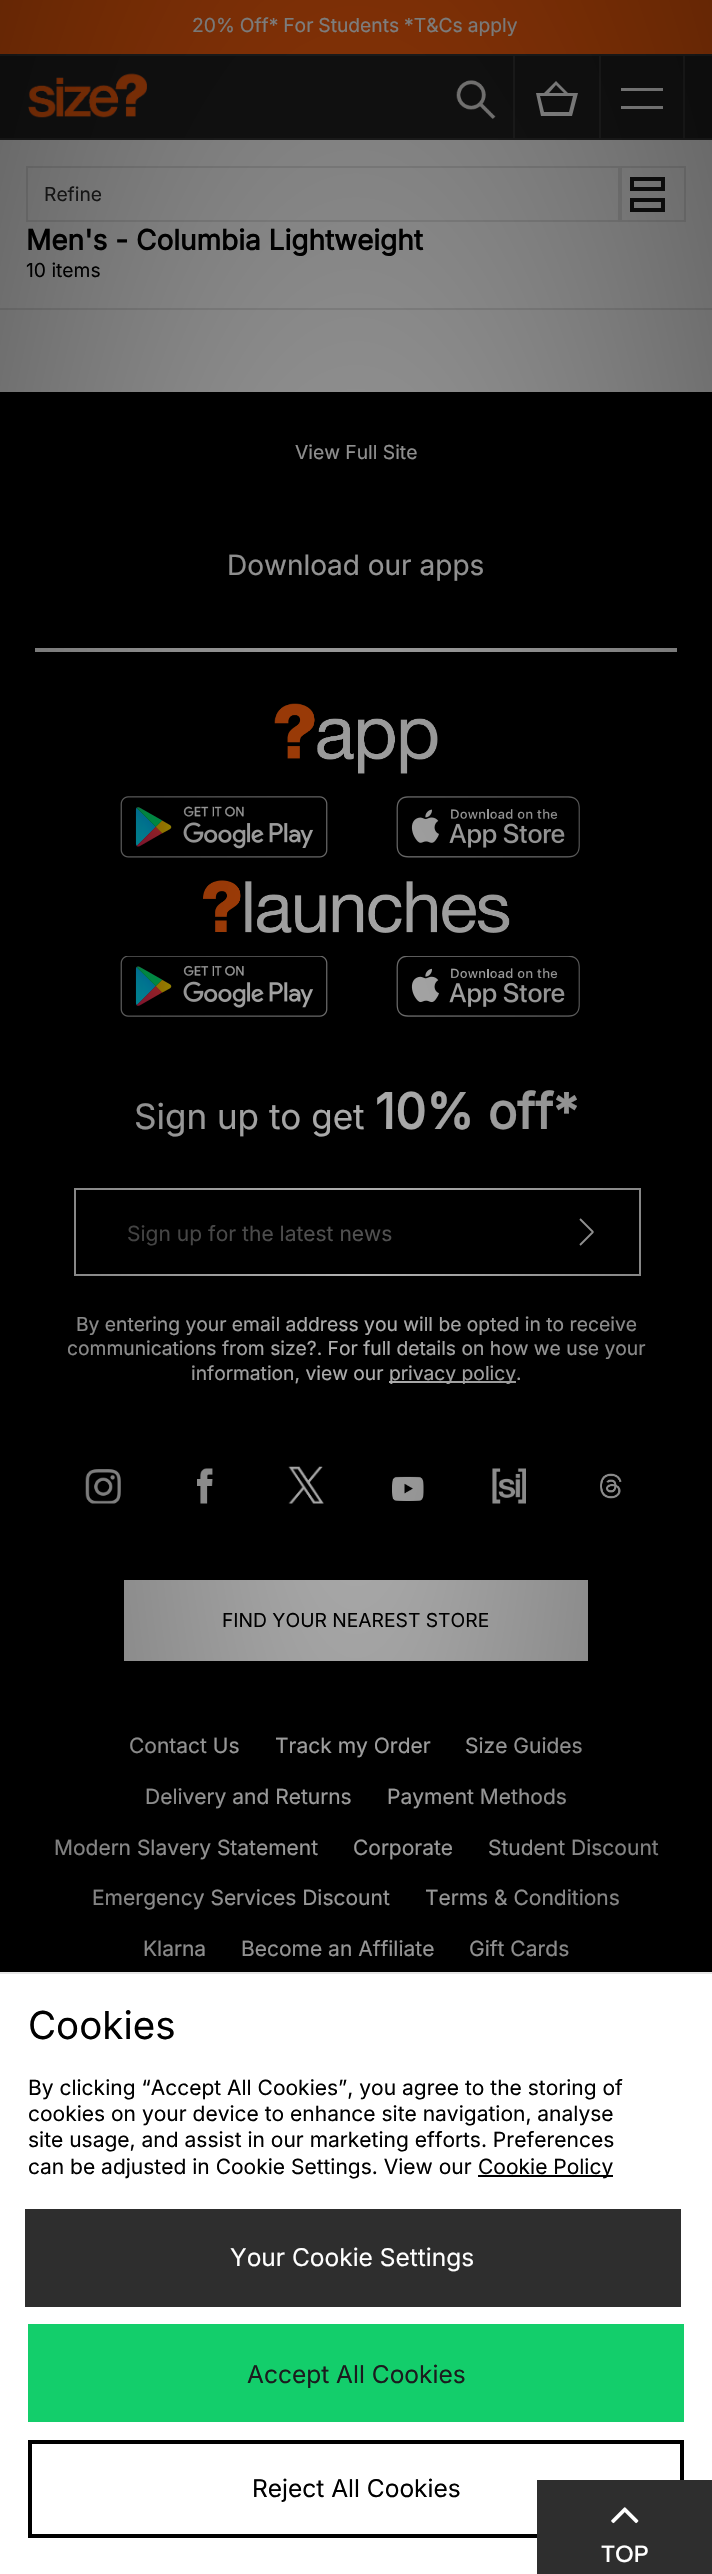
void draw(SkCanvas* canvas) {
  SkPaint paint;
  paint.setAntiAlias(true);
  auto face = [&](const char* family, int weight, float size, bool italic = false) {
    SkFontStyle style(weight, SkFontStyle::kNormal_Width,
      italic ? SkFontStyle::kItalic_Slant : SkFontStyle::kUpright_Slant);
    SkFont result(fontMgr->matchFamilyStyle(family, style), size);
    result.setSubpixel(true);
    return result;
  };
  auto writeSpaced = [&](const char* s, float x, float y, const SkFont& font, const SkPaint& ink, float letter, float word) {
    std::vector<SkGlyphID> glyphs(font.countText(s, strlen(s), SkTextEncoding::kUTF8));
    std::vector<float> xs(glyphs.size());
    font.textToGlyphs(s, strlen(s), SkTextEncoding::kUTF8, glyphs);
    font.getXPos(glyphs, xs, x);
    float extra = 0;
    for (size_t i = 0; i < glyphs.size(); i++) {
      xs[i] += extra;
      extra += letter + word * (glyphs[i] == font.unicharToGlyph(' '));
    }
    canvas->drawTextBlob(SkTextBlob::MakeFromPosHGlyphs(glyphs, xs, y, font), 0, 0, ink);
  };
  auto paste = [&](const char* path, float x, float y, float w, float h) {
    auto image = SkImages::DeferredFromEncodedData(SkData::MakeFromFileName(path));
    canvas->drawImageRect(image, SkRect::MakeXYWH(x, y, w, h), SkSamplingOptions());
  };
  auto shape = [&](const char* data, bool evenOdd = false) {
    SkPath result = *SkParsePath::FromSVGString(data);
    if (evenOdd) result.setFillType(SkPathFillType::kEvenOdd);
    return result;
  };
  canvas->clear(0xffffffff);
  {
    const struct { float x, y, w, h; SkColor color; } items[] = {
      {0, 56, 712, 82, 0xff1f1f1f},
      {0, 54, 712, 2, 0xff333333},
      {0, 0, 712, 54, 0xffff600b},
      {0, 138, 712, 2, 0xff333333},
    };
    for (auto [x, y, w, h, color] : items) {
      paint.setColor(color);
      canvas->drawRect(SkRect::MakeXYWH(x, y, w, h), paint);
    }
  }
  paste("img/1.png", 28, 73, 119, 45);
  paste("img/2.png", 456, 80, 40, 39);
  canvas->drawRect(SkRect::MakeXYWH(599, 56, 2, 84), paint);
  canvas->drawRect(SkRect::MakeXYWH(513, 56, 2, 84), paint);
  paint.setColor(0xffffffff);
  canvas->drawPath(shape("M568 93H578L572 116H541L536 93H544L556 81ZM544 112H569L573 96H540ZM564 93L556 85L549 93Z", true), paint);
  {
    const struct { float x, y, w, h; SkColor color; } items[] = {
      {683, 56, 2, 84, 0xff333333},
      {621, 88, 42, 3, 0xffffffff},
      {621, 106, 42, 3, 0xffffffff},
      {0, 308, 712, 2, 0xffe5e5e5},
    };
    for (auto [x, y, w, h, color] : items) {
      paint.setColor(color);
      canvas->drawRect(SkRect::MakeXYWH(x, y, w, h), paint);
    }
  }
  paint.setStroke(true);
  paint.setStrokeWidth(2);
  canvas->drawRect(SkRect::MakeXYWH(27, 167, 592, 54), paint);
  canvas->drawRect(SkRect::MakeXYWH(621, 167, 64, 54), paint);
  paint.setStrokeWidth(4);
  paint.setColor(0xff1a1a1a);
  canvas->drawRect(SkRect::MakeXYWH(632, 179, 31, 10), paint);
  canvas->drawRect(SkRect::MakeXYWH(632, 200, 31, 10), paint);
  paint.setStroke(false);
  paint.setColor(0xff000000);
  canvas->drawRect(SkRect::MakeXYWH(0, 392, 712, 1580), paint);
  paint.setColor(0xffffffff);
  canvas->drawRect(SkRect::MakeXYWH(35, 648, 642, 4), paint);
  paste("img/3.png", 274, 703, 164, 71);
  paste("img/4.png", 120, 796, 208, 62);
  paste("img/5.png", 396, 796, 184, 62);
  paste("img/6.png", 203, 880, 307, 53);
  paste("img/7.png", 120, 956, 208, 61);
  paste("img/8.png", 396, 956, 184, 61);
  paint.setStroke(true);
  paint.setStrokeWidth(2);
  canvas->drawRect(SkRect::MakeXYWH(75, 1189, 565, 86), paint);
  paint.setStrokeWidth(1.8f);
  paint.setStrokeJoin(SkPaint::kBevel_Join);
  canvas->drawPath(shape("M580 1245L593 1232L580 1219"), paint);
  paint.setStroke(false);
  canvas->drawRect(SkRect::MakeXYWH(389, 1381, 127, 2), paint);
  paste("img/9.png", 85, 1469, 36, 35);
  paste("img/10.png", 197, 1468, 16, 36);
  paste("img/11.png", 288, 1466, 36, 38);
  paste("img/12.png", 392, 1476, 32, 25);
  paste("img/13.png", 492, 1468, 34, 36);
  paste("img/14.png", 600, 1473, 22, 26);
  {
    const struct { float x, y, w, h; SkColor color; } items[] = {
      {124, 1580, 464, 81, 0xffffffff},
      {0, 1972, 712, 2, 0xffe5e5e5},
      {478, 2175, 135, 2, 0xff000000},
      {25, 2209, 656, 98, 0xff2e2e2e},
      {28, 2324, 656, 98, 0xff13ce6b},
    };
    for (auto [x, y, w, h, color] : items) {
      paint.setColor(color);
      canvas->drawRect(SkRect::MakeXYWH(x, y, w, h), paint);
    }
  }
  paint.setStroke(true);
  paint.setStrokeWidth(4);
  paint.setStrokeJoin(SkPaint::kMiter_Join);
  paint.setColor(0xff000000);
  canvas->drawRect(SkRect::MakeXYWH(30, 2442, 652, 94), paint);
  paint.setStroke(false);
  paint.setColor(0xff2e2e2e);
  canvas->drawRect(SkRect::MakeXYWH(537, 2480, 175, 94), paint);
  paste("img/15.png", 611, 2507, 28, 17);
  auto f0 = face("Inter", 400, 19.25f);
  paint.setColor(0xffffffff);
  writeSpaced("20% Off* For Students *T&Cs apply", 192, 32, f0, paint, 0, -0.5f);
  paint.setColor(0xff2e2e2e);
  canvas->drawString("Refine", 44, 201, f0, paint);
  auto f1 = face("Inter", 700, 28);
  paint.setColor(0xff000000);
  canvas->drawString("Men's - Columbia Lightweight", 26, 250, f1, paint);
  canvas->drawString("10 items", 26, 277, f0, paint);
  paint.setColor(0xffffffff);
  canvas->drawString("View Full Site", 295, 459, f0, paint);
  auto f2 = face("Inter", 400, 28);
  canvas->drawString("Download our apps", 227, 575, f2, paint);
  auto f3 = face("Inter", 400, 35);
  canvas->drawString("Sign up to get", 134, 1129, f3, paint);
  auto f4 = face("Inter", 700, 49);
  canvas->drawString("10% off*", 375, 1129, f4, paint);
  auto f5 = face("Inter", 400, 21);
  paint.setColor(0xff757575);
  canvas->drawString("Sign up for the latest news", 127, 1241, f5, paint);
  paint.setColor(0xffffffff);
  {
    const struct { const char* s; float x, y; } items[] = {
      {"By entering your email address you will be opted in to receive", 76, 1331},
      {"communications from size?. For full details on how we use your", 67, 1355},
      {"information, view our", 191, 1380},
      {"privacy policy", 389, 1380},
      {".", 516, 1380},
    };
    for (auto [s, x, y] : items) {
      canvas->drawString(s, x, y, f0, paint);
    }
  }
  paint.setColor(0xff000000);
  canvas->drawString("FIND YOUR NEAREST STORE", 222, 1627, f0, paint);
  paint.setColor(0xffffffff);
  {
    const struct { const char* s; float x, y; } items[] = {
      {"Contact Us", 129, 1753},
      {"Track my Order", 275, 1753},
      {"Size Guides", 465, 1753},
      {"Delivery and Returns", 145, 1804},
      {"Payment Methods", 387, 1804},
      {"Modern Slavery Statement", 54, 1855},
      {"Corporate", 353, 1855},
      {"Student Discount", 488, 1855},
      {"Emergency Services Discount", 92, 1905},
      {"Terms & Conditions", 425, 1905},
      {"Klarna", 143, 1956},
      {"Become an Affiliate", 241, 1956},
      {"Gift Cards", 469, 1956},
    };
    for (auto [s, x, y] : items) {
      canvas->drawString(s, x, y, f5, paint);
    }
  }
  {
    const SkColor colors[] = {0x4d000000, 0x99000000};
    const float stops[] = {0, 1};
    SkMatrix m = SkMatrix::Translate(356, 1287).preScale(504, 1820);
    paint.setShader(SkGradientShader::MakeRadial({0, 0}, 1, colors, stops, 2, SkTileMode::kClamp, 0, &m));
    paint.setAlpha(255);
  }
  canvas->drawRect(SkRect::MakeXYWH(0, 0, 712, 1957), paint);
  auto f6 = face("Inter", 400, 38.5f);
  paint.setShader(nullptr);
  paint.setColor(0xff000000);
  canvas->drawString("Cookies", 28, 2039, f6, paint);
  {
    const struct { const char* s; float x, y; } items[] = {
      {"By clicking “Accept All Cookies”, you agree to the storing of", 28, 2095},
      {"cookies on your device to enhance site navigation, analyse", 28, 2121},
      {"site usage, and assist in our marketing efforts. Preferences", 28, 2147},
      {"can be adjusted in Cookie Settings. View our", 28, 2174},
      {"Cookie Policy", 478, 2174},
    };
    for (auto [s, x, y] : items) {
      canvas->drawString(s, x, y, f5, paint);
    }
  }
  auto f7 = face("Inter", 400, 24.5f);
  paint.setColor(0xffffffff);
  canvas->drawString("Your Cookie Settings", 230, 2266, f7, paint);
  paint.setColor(0xff1b1c1e);
  canvas->drawString("Accept All Cookies", 247, 2383, f7, paint);
  paint.setColor(0xff000000);
  canvas->drawString("Reject All Cookies", 252, 2497, f7, paint);
  auto f8 = face("Proxima Nova", 500, 24.5f);
  paint.setColor(0xffffffff);
  canvas->drawString("TOP", 601, 2562, f8, paint);
}
